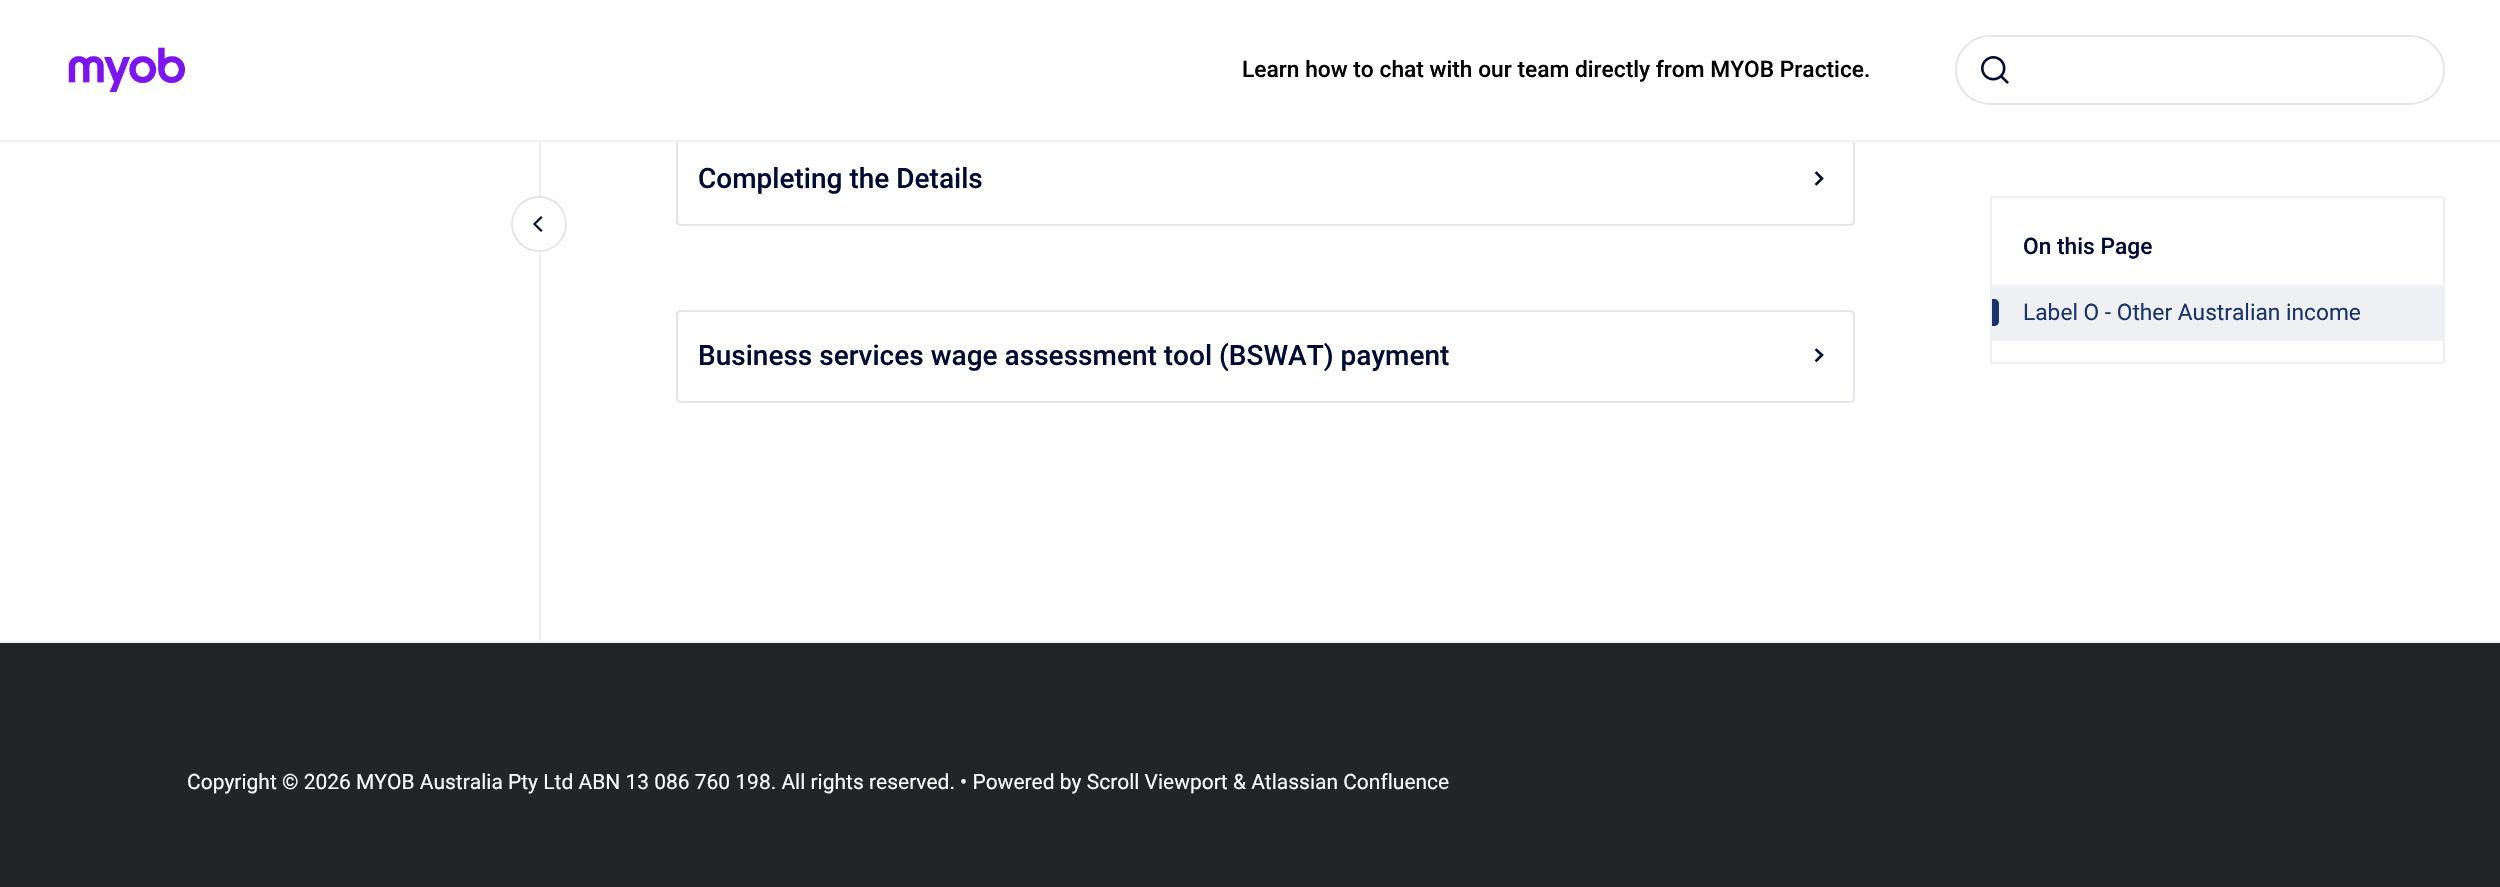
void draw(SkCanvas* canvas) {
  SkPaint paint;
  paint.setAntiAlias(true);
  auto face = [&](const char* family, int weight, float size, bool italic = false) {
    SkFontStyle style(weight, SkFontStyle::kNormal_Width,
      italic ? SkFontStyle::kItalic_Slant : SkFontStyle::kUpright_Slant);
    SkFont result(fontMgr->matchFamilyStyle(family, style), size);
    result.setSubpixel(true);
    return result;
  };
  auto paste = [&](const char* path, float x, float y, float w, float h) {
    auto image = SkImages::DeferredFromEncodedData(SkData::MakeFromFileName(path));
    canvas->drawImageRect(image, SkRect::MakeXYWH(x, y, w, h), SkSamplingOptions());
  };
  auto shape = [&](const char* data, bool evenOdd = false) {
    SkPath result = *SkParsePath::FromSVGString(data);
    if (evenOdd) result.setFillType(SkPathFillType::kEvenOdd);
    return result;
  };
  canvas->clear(0xffffffff);
  paint.setStroke(true);
  paint.setStrokeWidth(2);
  paint.setColor(0xffe2e5eb);
  canvas->drawRoundRect(SkRect::MakeXYWH(677, 134, 1177, 91), 4, 4, paint);
  paint.setStroke(false);
  paint.setColor(0xffffffff);
  canvas->drawRect(SkRect::MakeXYWH(676, 133, 1179, 7), paint);
  paint.setColor(0xffeff0f4);
  canvas->drawRect(SkRect::MakeXYWH(0, 140, 2500, 2), paint);
  paste("img/1.png", 68, 47, 118, 46);
  paint.setStroke(true);
  paint.setColor(0xffe2e5eb);
  canvas->drawRoundRect(SkRect::MakeXYWH(1956, 36, 488, 68), 34, 34, paint);
  paint.setStroke(false);
  paint.setColor(0xffffffff);
  canvas->drawRoundRect(SkRect::MakeXYWH(1957, 37, 486, 66), 33, 33, paint);
  paste("img/2.png", 1981, 56, 28, 28);
  paint.setColor(0xffeff0f4);
  canvas->drawRect(SkRect::MakeXYWH(539, 142, 2, 499), paint);
  paint.setColor(0xffffffff);
  canvas->drawPath(shape("M539 252C524 252 511 239 511 224C511 209 524 196 539 196C554 196 567 209 567 224C567 239 554 252 539 252Z"), paint);
  paint.setStroke(true);
  paint.setStrokeWidth(1.8f);
  paint.setColor(0xffe2e5eb);
  canvas->drawPath(shape("M539 251C524 251 512 239 512 224C512 209 524 197 539 197C554 197 566 209 566 224C566 239 554 251 539 251Z"), paint);
  paint.setStrokeWidth(2.2f);
  paint.setStrokeCap(SkPaint::kSquare_Cap);
  paint.setColor(0xff000c34);
  canvas->drawPath(shape("M541 230.5L534.5 224L541 217.5"), paint);
  paint.setStrokeWidth(2.6f);
  canvas->drawPath(shape("M1816.5 173L1822 178.5L1816.5 184"), paint);
  paint.setStrokeWidth(2);
  paint.setStrokeCap(SkPaint::kButt_Cap);
  paint.setColor(0xffe2e5eb);
  canvas->drawRoundRect(SkRect::MakeXYWH(677, 311, 1177, 91), 4, 4, paint);
  paint.setStrokeWidth(2.6f);
  paint.setStrokeCap(SkPaint::kSquare_Cap);
  paint.setColor(0xff000c34);
  canvas->drawPath(shape("M1816.5 350L1822 355L1816.5 360.5"), paint);
  paint.setStrokeWidth(2);
  paint.setStrokeCap(SkPaint::kButt_Cap);
  paint.setColor(0xffeff0f4);
  canvas->drawRoundRect(SkRect::MakeXYWH(1991, 197, 453, 166), 1, 1, paint);
  paint.setStroke(false);
  canvas->drawRect(SkRect::MakeXYWH(1992, 285, 451, 56), paint);
  paint.setColor(0xff193468);
  canvas->drawPath(shape("M1992 299H1994C1997 299 1999 301 1999 304V321C1999 324 1997 326 1994 326H1992Z"), paint);
  paint.setColor(0xff232428);
  canvas->drawRect(SkRect::MakeXYWH(0, 643, 2500, 244), paint);
  paint.setColor(0xffeff0f4);
  canvas->drawRect(SkRect::MakeXYWH(0, 641, 2500, 2), paint);
  auto f0 = face("Roboto", 500, 22.75f);
  paint.setColor(0xff000000);
  canvas->drawString("Learn how to chat with our team directly from MYOB Practice.", 1242, 77, f0, paint);
  auto f1 = face("Roboto", 500, 28);
  paint.setColor(0xff000c34);
  canvas->drawString("Completing the Details", 698, 188, f1, paint);
  canvas->drawString("Business services wage assessment tool (BSWAT) payment", 698, 365, f1, paint);
  canvas->drawString("On this Page", 2023, 254, f0, paint);
  auto f2 = face("Roboto", 400, 22.75f);
  paint.setColor(0xff193468);
  canvas->drawString("Label O - Other Australian income", 2023, 320, f2, paint);
  auto f3 = face("Roboto", 400, 21);
  paint.setColor(0xffffffff);
  canvas->drawString("Copyright © 2026 MYOB Australia Pty Ltd ABN 13 086 760 198. All rights reserved. • Powered by Scroll Viewport & Atlassian Confluence", 187, 789, f3, paint);
}
